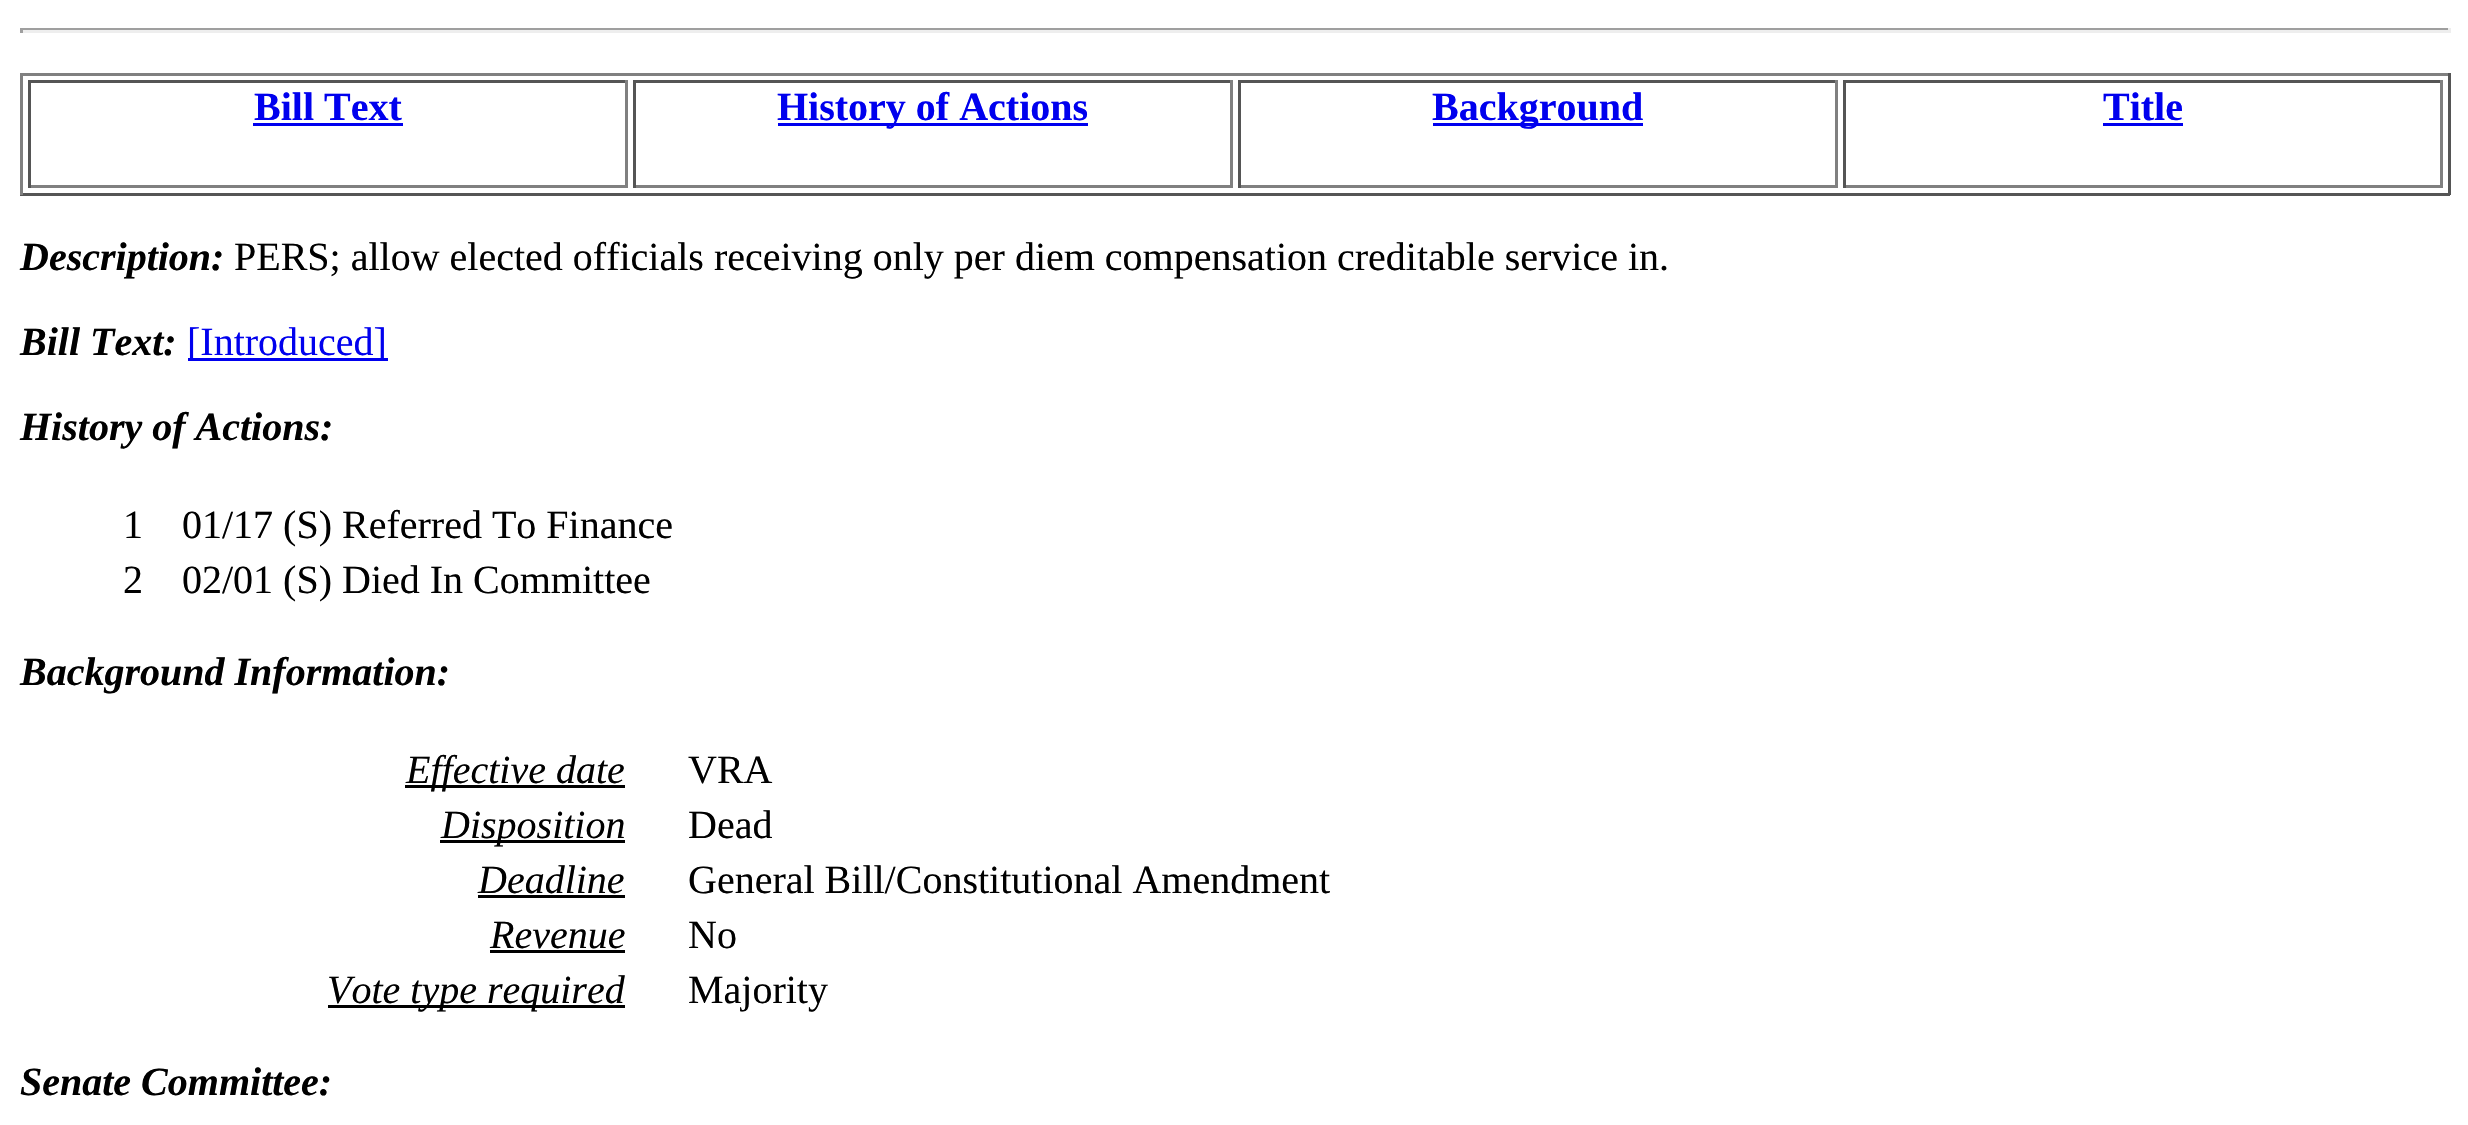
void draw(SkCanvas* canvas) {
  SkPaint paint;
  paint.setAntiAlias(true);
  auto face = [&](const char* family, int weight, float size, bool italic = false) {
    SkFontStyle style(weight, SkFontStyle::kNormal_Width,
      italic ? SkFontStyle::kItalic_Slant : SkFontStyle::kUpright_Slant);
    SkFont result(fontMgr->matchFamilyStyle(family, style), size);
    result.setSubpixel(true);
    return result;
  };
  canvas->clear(0xffffffff);
  {
    const struct { float x, y, w, h; SkColor color; } items[] = {
      {20, 28, 2430, 2, 0xff9f9f9f},
      {2448, 28, 3, 5, 0xffeeeeee},
      {20, 30, 2430, 3, 0xffeeeeee},
      {20, 28, 3, 5, 0xff9f9f9f},
      {20, 73, 2430, 3, 0xff808080},
      {2448, 73, 3, 122, 0xff555555},
      {20, 193, 2430, 3, 0xff555555},
      {20, 73, 3, 122, 0xff808080},
      {28, 80, 600, 3, 0xff555555},
      {625, 80, 3, 108, 0xff808080},
      {28, 185, 600, 3, 0xff808080},
      {28, 80, 3, 108, 0xff555555},
      {253, 123, 150, 3, 0xff0000ee},
      {633, 80, 600, 3, 0xff555555},
      {1230, 80, 3, 108, 0xff808080},
      {633, 185, 600, 3, 0xff808080},
      {633, 80, 3, 108, 0xff555555},
      {778, 123, 310, 3, 0xff0000ee},
      {1238, 80, 600, 3, 0xff555555},
      {1835, 80, 3, 108, 0xff808080},
      {1238, 185, 600, 3, 0xff808080},
      {1238, 80, 3, 108, 0xff555555},
      {1433, 123, 210, 3, 0xff0000ee},
      {1843, 80, 600, 3, 0xff555555},
      {2440, 80, 3, 108, 0xff808080},
      {1843, 185, 600, 3, 0xff808080},
      {1843, 80, 3, 108, 0xff555555},
      {2103, 123, 80, 3, 0xff0000ee},
      {188, 358, 200, 3, 0xff0000ee},
      {405, 785, 220, 3, 0xff000000},
      {440, 840, 185, 3, 0xff000000},
      {478, 895, 147, 3, 0xff000000},
      {490, 950, 135, 3, 0xff000000},
      {328, 1005, 297, 3, 0xff000000},
    };
    for (auto [x, y, w, h, color] : items) {
      paint.setColor(color);
      canvas->drawRect(SkRect::MakeXYWH(x, y, w, h), paint);
    }
  }
  auto f0 = face("Liberation Serif", 700, 40);
  paint.setColor(0xff0000ee);
  {
    const struct { const char* s; float x, y; } items[] = {
      {"Bill Text", 254, 120},
      {"History of Actions", 777, 120},
      {"Background", 1432, 120},
      {"Title", 2103, 120},
    };
    for (auto [s, x, y] : items) {
      canvas->drawString(s, x, y, f0, paint);
    }
  }
  auto f1 = face("Liberation Serif", 700, 40, true);
  paint.setColor(0xff000000);
  canvas->drawString("Description:", 20, 270, f1, paint);
  auto f2 = face("Liberation Serif", 400, 40);
  canvas->drawString("PERS; allow elected officials receiving only per diem compensation creditable service in.", 234, 270, f2, paint);
  canvas->drawString("Bill Text:", 20, 355, f1, paint);
  paint.setColor(0xff0000ee);
  canvas->drawString("[Introduced]", 187, 355, f2, paint);
  paint.setColor(0xff000000);
  canvas->drawString("History of Actions:", 20, 440, f1, paint);
  {
    const struct { const char* s; float x, y; } items[] = {
      {"1", 123, 538},
      {"01/17 (S) Referred To Finance", 182, 538},
      {"2", 123, 593},
      {"02/01 (S) Died In Committee", 182, 593},
    };
    for (auto [s, x, y] : items) {
      canvas->drawString(s, x, y, f2, paint);
    }
  }
  canvas->drawString("Background Information:", 20, 685, f1, paint);
  auto f3 = face("Liberation Serif", 400, 40, true);
  canvas->drawString("Effective date", 406, 783, f3, paint);
  canvas->drawString("VRA", 688, 783, f2, paint);
  canvas->drawString("Disposition", 441, 838, f3, paint);
  canvas->drawString("Dead", 688, 838, f2, paint);
  canvas->drawString("Deadline", 478, 893, f3, paint);
  canvas->drawString("General Bill/Constitutional Amendment", 688, 893, f2, paint);
  canvas->drawString("Revenue", 490, 948, f3, paint);
  canvas->drawString("No", 688, 948, f2, paint);
  canvas->drawString("Vote type required", 327, 1003, f3, paint);
  canvas->drawString("Majority", 688, 1003, f2, paint);
  canvas->drawString("Senate Committee:", 20, 1095, f1, paint);
}
